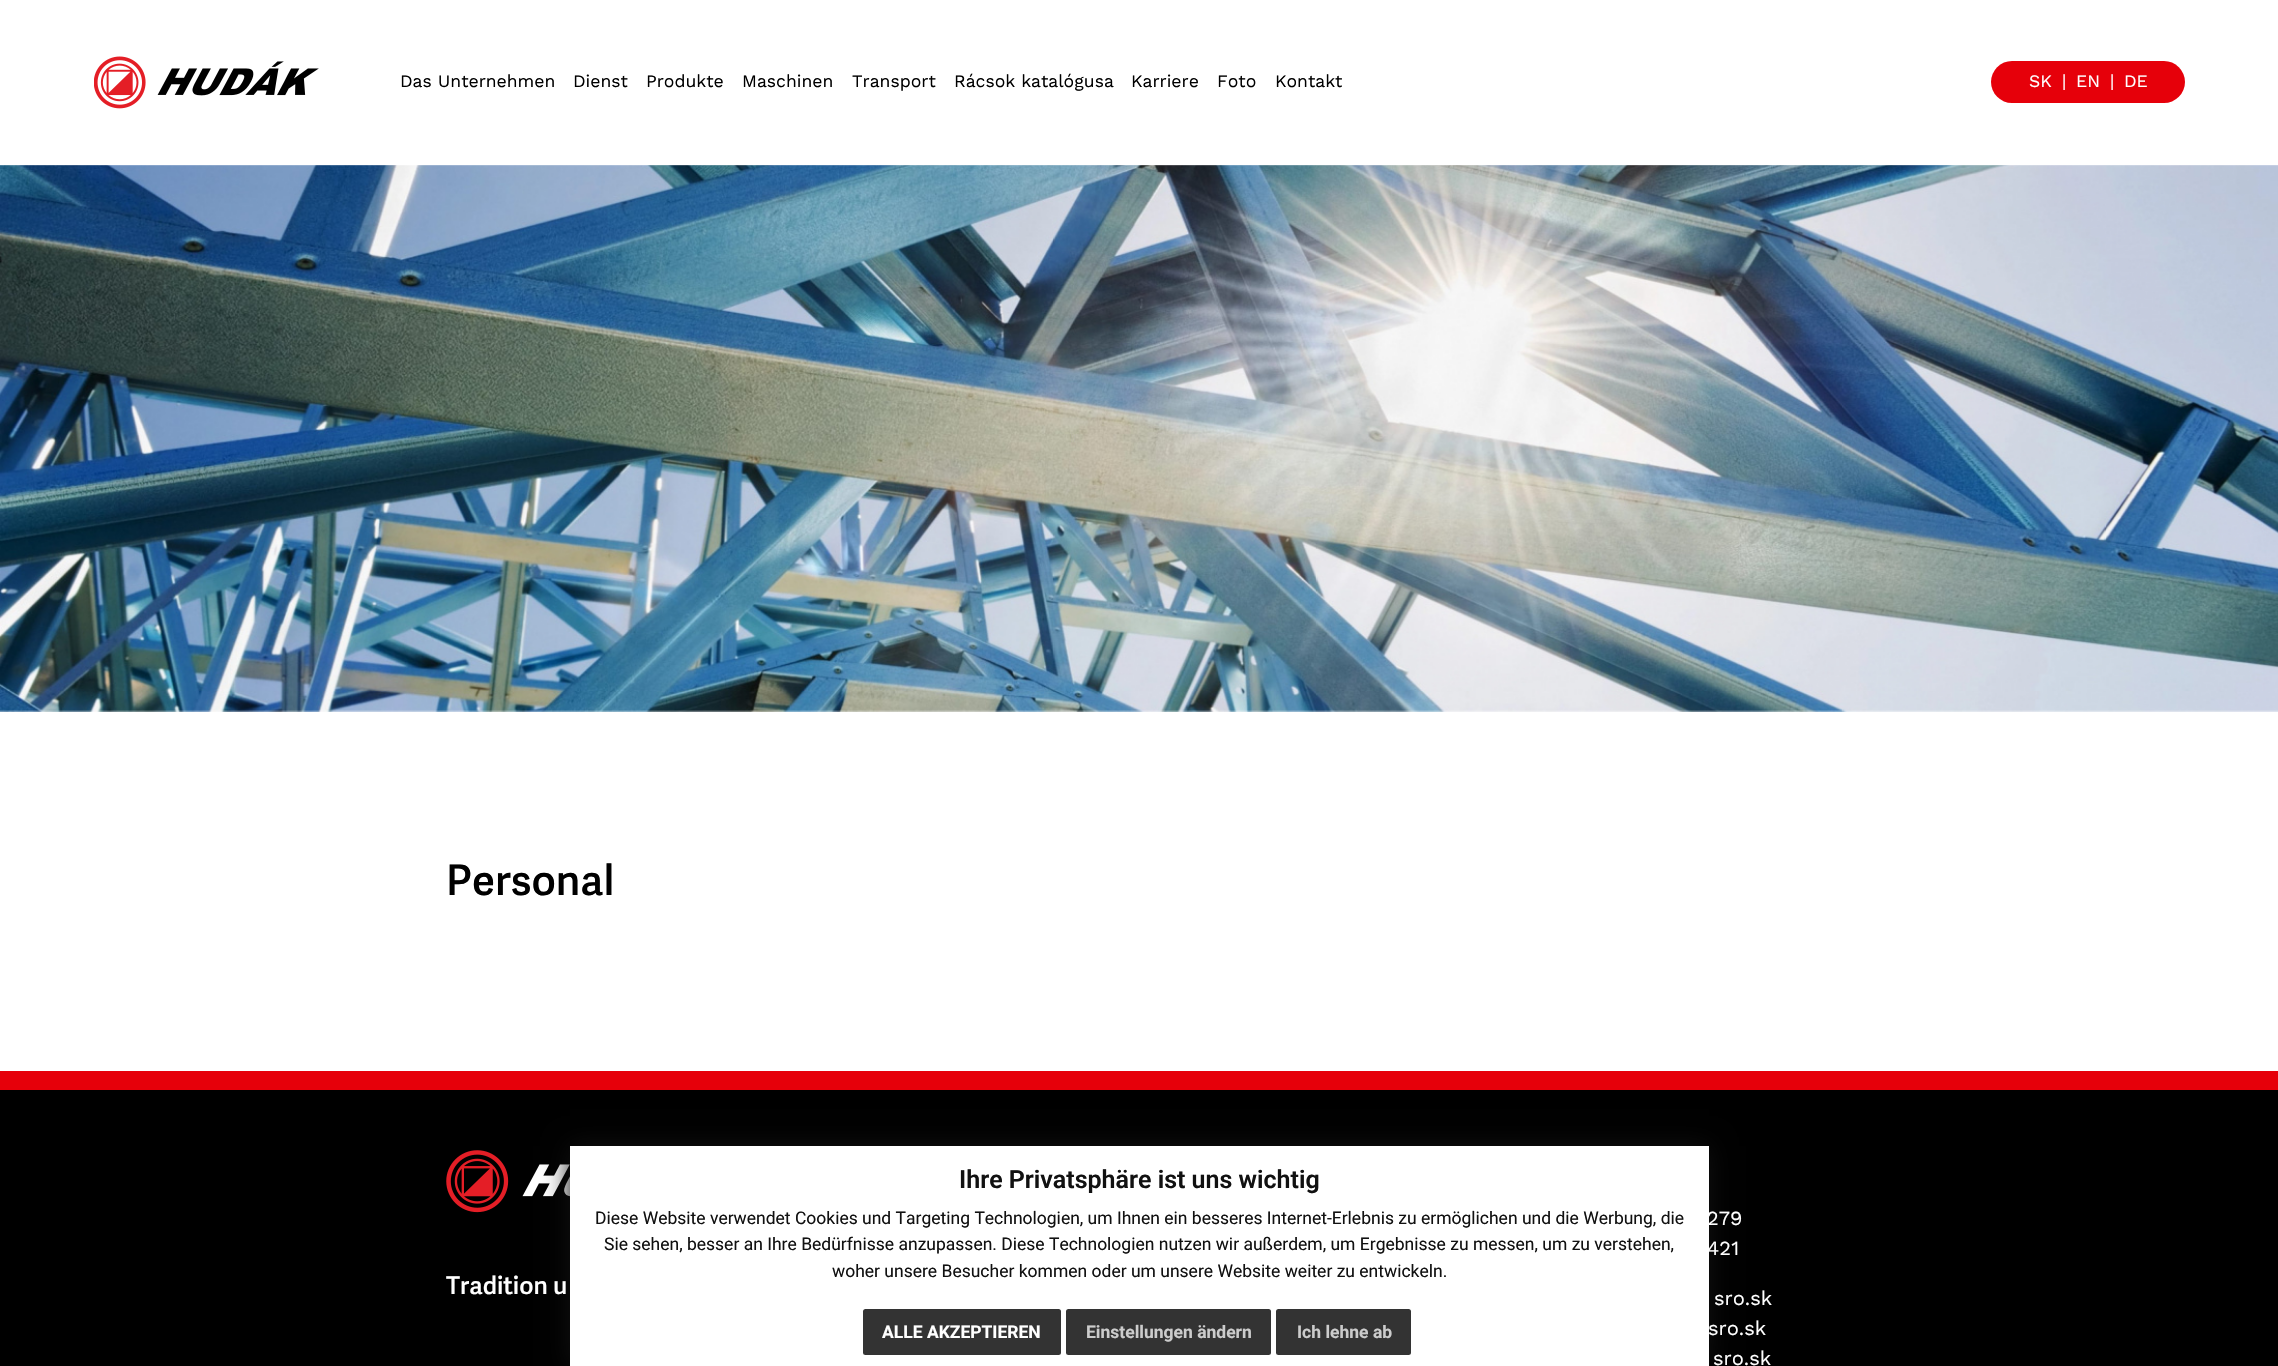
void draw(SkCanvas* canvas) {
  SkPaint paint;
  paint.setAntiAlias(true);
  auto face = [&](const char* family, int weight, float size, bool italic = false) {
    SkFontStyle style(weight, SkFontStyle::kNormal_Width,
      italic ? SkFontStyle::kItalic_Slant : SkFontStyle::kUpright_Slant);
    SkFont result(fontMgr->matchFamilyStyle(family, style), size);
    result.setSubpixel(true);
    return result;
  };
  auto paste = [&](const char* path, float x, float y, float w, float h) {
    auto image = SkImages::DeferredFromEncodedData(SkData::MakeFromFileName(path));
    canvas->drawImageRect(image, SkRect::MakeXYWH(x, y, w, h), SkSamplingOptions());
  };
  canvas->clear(0xffffffff);
  paste("img/1.png", 94, 56, 225, 53);
  paint.setColor(0xffe6000a);
  canvas->drawRoundRect(SkRect::MakeXYWH(1991, 61, 194, 42), 21, 21, paint);
  paste("img/2.png", 0, 165, 2278, 547);
  paint.setColor(0xff000000);
  canvas->drawRect(SkRect::MakeXYWH(0, 1090, 2278, 276), paint);
  paint.setColor(0xffe6000a);
  canvas->drawRect(SkRect::MakeXYWH(0, 1071, 2278, 19), paint);
  paste("img/3.png", 446, 1150, 124, 63);
  paint.setColor(0xff111111);
  paint.setMaskFilter(SkMaskFilter::MakeBlur(kNormal_SkBlurStyle, 12.5f));
  canvas->drawRect(SkRect::MakeXYWH(570, 1146, 1139, 220), paint);
  paint.setMaskFilter(nullptr);
  paint.setColor(0xffffffff);
  canvas->drawRect(SkRect::MakeXYWH(570, 1146, 1139, 220), paint);
  paint.setColor(0xff333333);
  canvas->drawRoundRect(SkRect::MakeXYWH(863, 1309, 198, 46), 2.5f, 2.5f, paint);
  canvas->drawRoundRect(SkRect::MakeXYWH(1066, 1309, 205, 46), 2.5f, 2.5f, paint);
  canvas->drawRoundRect(SkRect::MakeXYWH(1276, 1309, 135, 46), 2.5f, 2.5f, paint);
  auto f0 = face("Work Sans", 400, 17.5f);
  paint.setColor(0xff000000);
  {
    const struct { const char* s; float x, y; } items[] = {
      {"Das Unternehmen", 400, 87},
      {"Dienst", 573, 87},
      {"Produkte", 646, 87},
      {"Maschinen", 742, 87},
      {"Transport", 852, 87},
      {"Rácsok katalógusa", 954, 87},
      {"Karriere", 1131, 87},
      {"Foto", 1217, 87},
      {"Kontakt", 1275, 87},
    };
    for (auto [s, x, y] : items) {
      canvas->drawString(s, x, y, f0, paint);
    }
  }
  paint.setColor(0xffffffff);
  {
    const struct { const char* s; float x, y; } items[] = {
      {"SK", 2029, 87},
      {"|", 2062, 87},
      {"EN", 2076, 87},
      {"|", 2110, 87},
      {"DE", 2124, 87},
    };
    for (auto [s, x, y] : items) {
      canvas->drawString(s, x, y, f0, paint);
    }
  }
  auto f1 = face("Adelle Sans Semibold", 600, 42);
  paint.setColor(0xff000000);
  canvas->drawString("Personal", 446, 895, f1, paint);
  auto f2 = face("Adelle Sans Semibold", 600, 24.5f);
  paint.setColor(0xffffffff);
  canvas->drawString("Tradition u", 446, 1294, f2, paint);
  auto f3 = face("Work Sans", 400, 20);
  {
    const struct { const char* s; float x, y; } items[] = {
      {"279", 1707, 1225},
      {"421", 1707, 1255},
      {"sro.sk", 1714, 1305},
      {"sro.sk", 1708, 1335},
      {"sro.sk", 1713, 1365},
    };
    for (auto [s, x, y] : items) {
      canvas->drawString(s, x, y, f3, paint);
    }
  }
  auto f4 = face("Roboto", 600, 25);
  paint.setColor(0xff111111);
  canvas->drawString("Ihre Privatsphäre ist uns wichtig", 959, 1188, f4, paint);
  auto f5 = face("Roboto", 400, 17.5f);
  {
    const struct { const char* s; float x, y; } items[] = {
      {"Diese Website verwendet Cookies und Targeting Technologien, um Ihnen ein besseres Internet-Erlebnis zu ermöglichen und die Werbung, die", 595, 1224},
      {"Sie sehen, besser an Ihre Bedürfnisse anzupassen. Diese Technologien nutzen wir außerdem, um Ergebnisse zu messen, um zu verstehen,", 604, 1250},
      {"woher unsere Besucher kommen oder um unsere Website weiter zu entwickeln.", 832, 1277},
    };
    for (auto [s, x, y] : items) {
      canvas->drawString(s, x, y, f5, paint);
    }
  }
  auto f6 = face("Roboto", 700, 17.5f);
  paint.setColor(0xffffffff);
  canvas->drawString("ALLE AKZEPTIEREN", 882, 1338, f6, paint);
  paint.setColor(0xffcccccc);
  canvas->drawString("Einstellungen ändern", 1086, 1338, f6, paint);
  canvas->drawString("Ich lehne ab", 1297, 1338, f6, paint);
}
